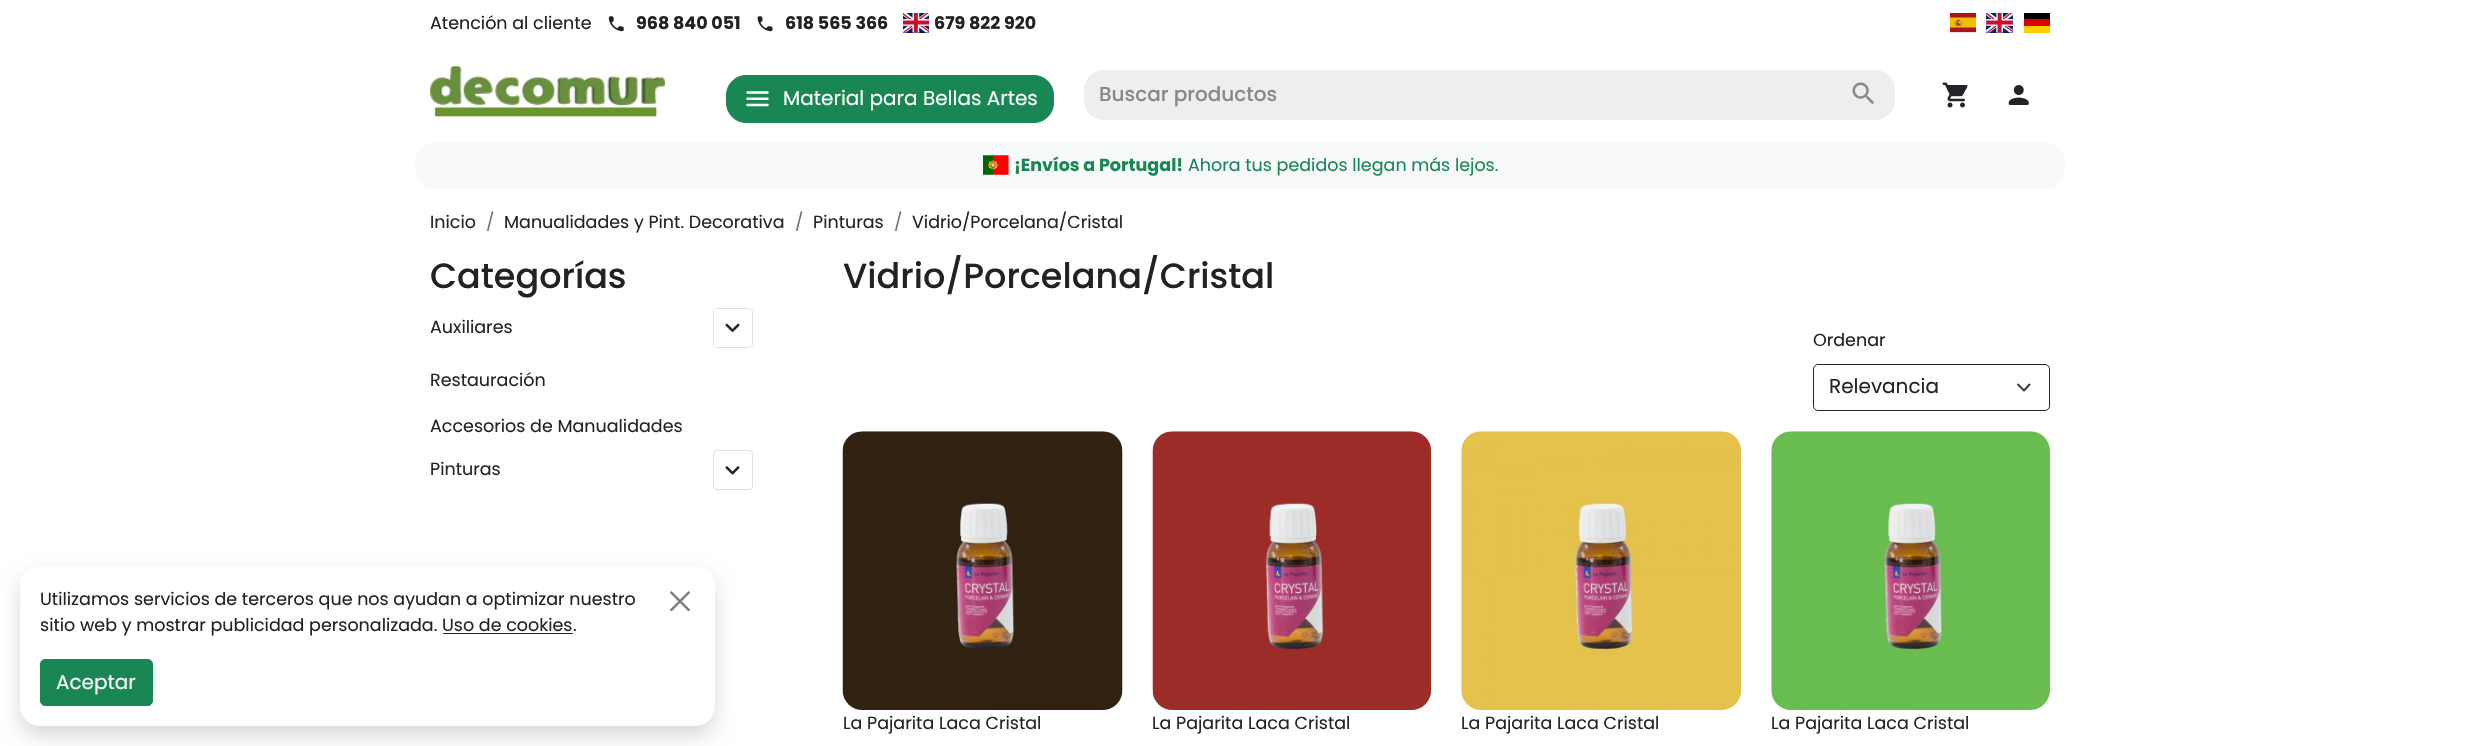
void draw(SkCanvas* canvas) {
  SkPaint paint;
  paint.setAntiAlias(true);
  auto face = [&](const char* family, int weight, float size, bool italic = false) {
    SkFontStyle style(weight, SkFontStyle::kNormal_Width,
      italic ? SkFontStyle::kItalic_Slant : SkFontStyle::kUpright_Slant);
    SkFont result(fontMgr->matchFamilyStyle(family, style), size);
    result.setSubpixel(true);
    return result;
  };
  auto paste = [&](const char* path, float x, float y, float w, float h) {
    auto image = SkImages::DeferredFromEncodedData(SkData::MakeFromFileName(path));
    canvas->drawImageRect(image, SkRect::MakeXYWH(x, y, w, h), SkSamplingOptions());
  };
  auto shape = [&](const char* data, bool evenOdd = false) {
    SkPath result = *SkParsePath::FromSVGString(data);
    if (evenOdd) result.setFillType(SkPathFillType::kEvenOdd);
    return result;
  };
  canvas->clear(0xffffffff);
  paste("img/1.png", 608, 16, 16, 16);
  paste("img/2.png", 757, 16, 16, 16);
  paste("img/3.png", 903, 13, 27, 20);
  paste("img/4.png", 1950, 13, 26, 20);
  paste("img/5.png", 1986, 13, 27, 20);
  {
    const struct { float x, y, w, h; SkColor color; } items[] = {
      {2024, 26, 26, 7, 0xffffce00},
      {2024, 13, 26, 6, 0xff000000},
      {2024, 19, 26, 7, 0xffdd0000},
    };
    for (auto [x, y, w, h, color] : items) {
      paint.setColor(color);
      canvas->drawRect(SkRect::MakeXYWH(x, y, w, h), paint);
    }
  }
  paste("img/6.png", 430, 66, 236, 51);
  paint.setColor(0xff198754);
  canvas->drawRoundRect(SkRect::MakeXYWH(726.5f, 75.5f, 327, 47), 19.5f, 19.5f, paint);
  paint.setStroke(true);
  paint.setStrokeWidth(1);
  canvas->drawRoundRect(SkRect::MakeXYWH(726.5f, 75.5f, 327, 47), 19.5f, 19.5f, paint);
  paste("img/7.png", 746, 91, 23, 16);
  paint.setStroke(false);
  paint.setColor(0xffeeeeee);
  canvas->drawPath(shape("M1104 70H1834V120H1104C1093 120 1084 111 1084 100V90C1084 79 1093 70 1104 70Z"), paint);
  canvas->drawPath(shape("M1833 70H1875C1886 70 1895 79 1895 90V100C1895 111 1886 120 1875 120H1833Z"), paint);
  paste("img/8.png", 1852, 82, 22, 22);
  paste("img/9.png", 1942, 82, 26, 26);
  paste("img/10.png", 2008, 85, 21, 20);
  paint.setColor(0xfff8f9fa);
  canvas->drawRoundRect(SkRect::MakeXYWH(415, 143, 1650, 46), 20, 20, paint);
  paste("img/11.png", 983, 155, 26, 20);
  paint.setColor(0x26000000);
  paint.setMaskFilter(SkMaskFilter::MakeBlur(kNormal_SkBlurStyle, 10));
  canvas->drawRoundRect(SkRect::MakeXYWH(20, 576, 695, 160), 20, 20, paint);
  paint.setMaskFilter(nullptr);
  paint.setColor(0xffffffff);
  canvas->drawRoundRect(SkRect::MakeXYWH(20, 566, 695, 160), 20, 20, paint);
  paint.setColor(0xff212529);
  canvas->drawRect(SkRect::MakeXYWH(443, 633, 130, 1), paint);
  paste("img/12.png", 670, 591, 20, 20);
  paint.setColor(0xff198754);
  canvas->drawRoundRect(SkRect::MakeXYWH(40.5f, 659.5f, 112, 46), 4.5f, 4.5f, paint);
  paint.setStroke(true);
  canvas->drawRoundRect(SkRect::MakeXYWH(40.5f, 659.5f, 112, 46), 4.5f, 4.5f, paint);
  paint.setColor(0xffdee2e6);
  canvas->drawRoundRect(SkRect::MakeXYWH(713.5f, 308.5f, 39, 39), 3.5f, 3.5f, paint);
  paste("img/13.png", 725, 323, 15, 9);
  canvas->drawRoundRect(SkRect::MakeXYWH(713.5f, 450.5f, 39, 39), 3.5f, 3.5f, paint);
  paste("img/14.png", 725, 466, 15, 9);
  paint.setStrokeWidth(1.9f);
  paint.setStrokeCap(SkPaint::kRound_Cap);
  paint.setStrokeJoin(SkPaint::kRound_Join);
  paint.setColor(0xff343a40);
  canvas->drawPath(shape("M2018 384.5L2024 390.5L2029.5 384.5"), paint);
  paint.setStrokeWidth(1);
  paint.setStrokeCap(SkPaint::kButt_Cap);
  paint.setStrokeJoin(SkPaint::kMiter_Join);
  paint.setColor(0xff212529);
  canvas->drawRoundRect(SkRect::MakeXYWH(1813.5f, 364.5f, 236, 46), 4.5f, 4.5f, paint);
  paste("img/15.png", 842, 431, 281, 279);
  paste("img/16.png", 1152, 431, 280, 279);
  paste("img/17.png", 1461, 431, 281, 279);
  paste("img/18.png", 1771, 431, 279, 279);
  auto f0 = face("Poppins", 400, 17.5f);
  paint.setStroke(false);
  paint.setColor(0xff222222);
  canvas->drawString("Atención al cliente", 430, 29, f0, paint);
  auto f1 = face("Poppins", 700, 17.5f);
  {
    const struct { const char* s; float x, y; } items[] = {
      {"968 840 051", 636, 29},
      {"618 565 366", 785, 29},
      {"679 822 920", 934, 29},
    };
    for (auto [s, x, y] : items) {
      canvas->drawString(s, x, y, f1, paint);
    }
  }
  auto f2 = face("Poppins", 400, 20);
  paint.setColor(0xffffffff);
  canvas->drawString("Material para Bellas Artes", 783, 105, f2, paint);
  auto f3 = face("Poppins", 500, 20);
  paint.setColor(0xff888888);
  canvas->drawString("Buscar productos", 1099, 101, f3, paint);
  paint.setColor(0xff198754);
  canvas->drawString("¡Envíos a Portugal!", 1014, 171, f1, paint);
  canvas->drawString("Ahora tus pedidos llegan más lejos.", 1188, 171, f0, paint);
  paint.setColor(0xff222222);
  canvas->drawString("Utilizamos servicios de terceros que nos ayudan a optimizar nuestro", 40, 605, f0, paint);
  canvas->drawString("sitio web y mostrar publicidad personalizada.", 40, 631, f0, paint);
  paint.setColor(0xff212529);
  canvas->drawString("Uso de cookies", 442, 631, f0, paint);
  paint.setColor(0xff222222);
  canvas->drawString(".", 573, 631, f0, paint);
  paint.setColor(0xffffffff);
  canvas->drawString("Aceptar", 56, 689, f2, paint);
  paint.setColor(0xff212529);
  canvas->drawString("Inicio", 430, 228, f0, paint);
  paint.setColor(0xff6c757d);
  canvas->drawString("/", 486, 228, f0, paint);
  paint.setColor(0xff212529);
  canvas->drawString("Manualidades y Pint. Decorativa", 504, 228, f0, paint);
  paint.setColor(0xff6c757d);
  canvas->drawString("/", 795, 228, f0, paint);
  paint.setColor(0xff212529);
  canvas->drawString("Pinturas", 813, 228, f0, paint);
  paint.setColor(0xff6c757d);
  canvas->drawString("/", 894, 228, f0, paint);
  paint.setColor(0xff212529);
  canvas->drawString("Vidrio/Porcelana/Cristal", 912, 228, f0, paint);
  auto f4 = face("Poppins", 500, 35);
  paint.setColor(0xff222222);
  canvas->drawString("Categorías", 430, 288, f4, paint);
  paint.setColor(0xff212529);
  {
    const struct { const char* s; float x, y; } items[] = {
      {"Auxiliares", 430, 333},
      {"Restauración", 430, 386},
      {"Accesorios de Manualidades", 430, 432},
      {"Pinturas", 430, 475},
    };
    for (auto [s, x, y] : items) {
      canvas->drawString(s, x, y, f0, paint);
    }
  }
  paint.setColor(0xff222222);
  canvas->drawString("Vidrio/Porcelana/Cristal", 843, 288, f4, paint);
  canvas->drawString("Ordenar", 1813, 346, f0, paint);
  paint.setColor(0xff212529);
  canvas->drawString("Relevancia", 1829, 393, f2, paint);
  {
    const struct { const char* s; float x, y; } items[] = {
      {"La Pajarita Laca Cristal", 843, 729},
      {"La Pajarita Laca Cristal", 1152, 729},
      {"La Pajarita Laca Cristal", 1461, 729},
      {"La Pajarita Laca Cristal", 1771, 729},
    };
    for (auto [s, x, y] : items) {
      canvas->drawString(s, x, y, f0, paint);
    }
  }
}
